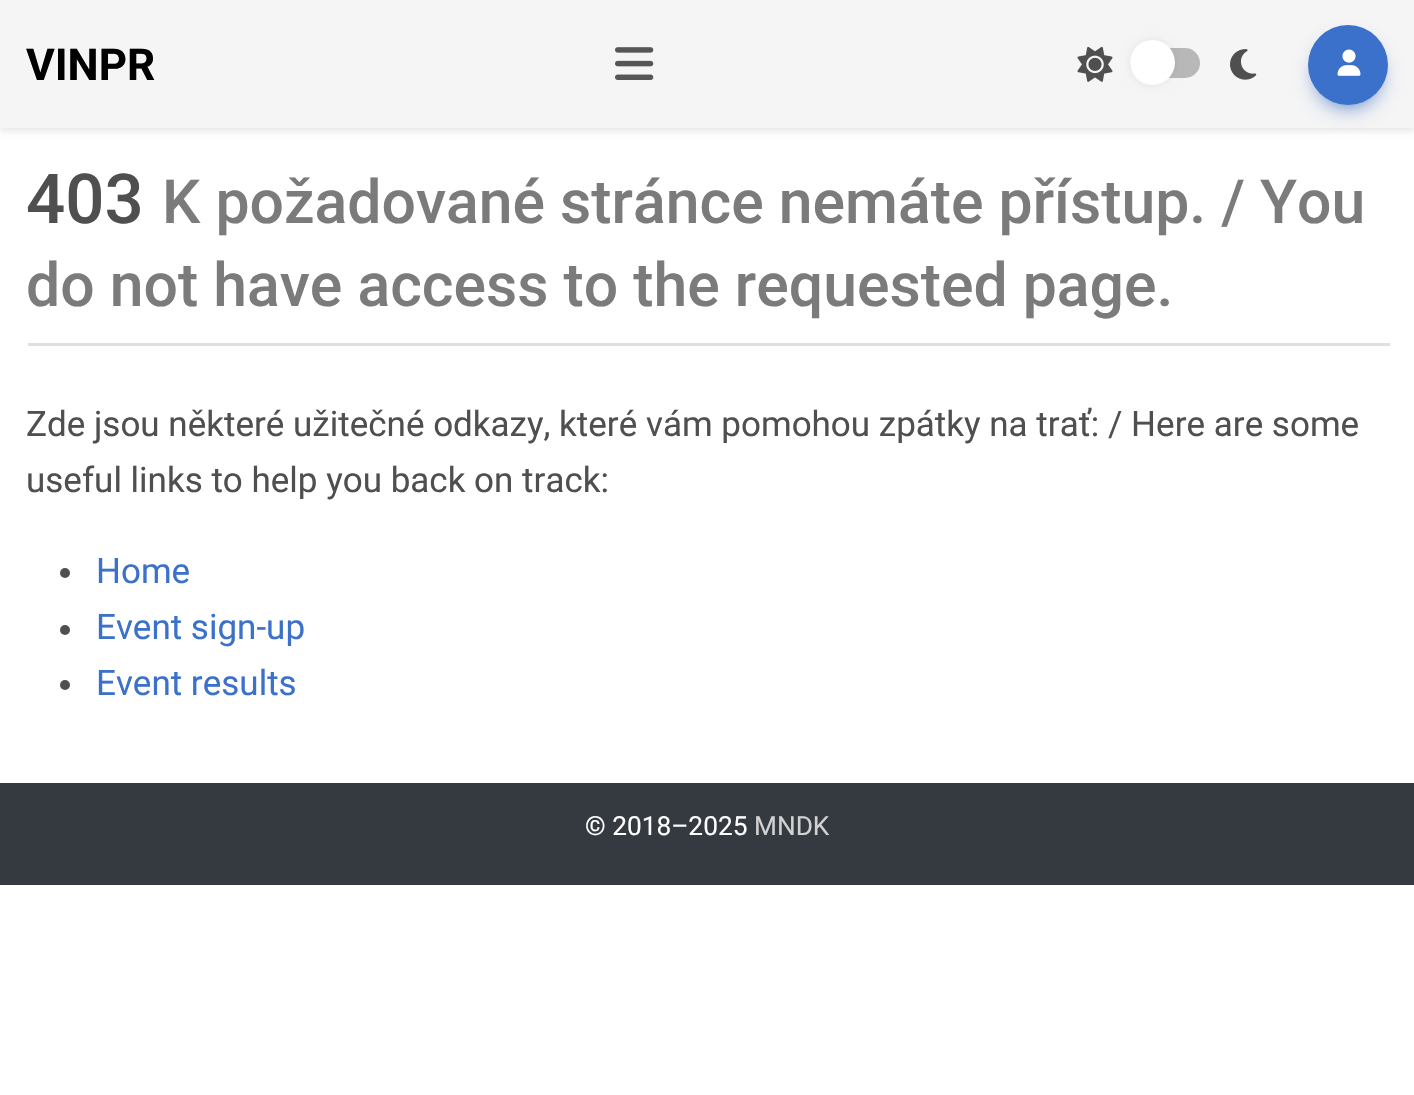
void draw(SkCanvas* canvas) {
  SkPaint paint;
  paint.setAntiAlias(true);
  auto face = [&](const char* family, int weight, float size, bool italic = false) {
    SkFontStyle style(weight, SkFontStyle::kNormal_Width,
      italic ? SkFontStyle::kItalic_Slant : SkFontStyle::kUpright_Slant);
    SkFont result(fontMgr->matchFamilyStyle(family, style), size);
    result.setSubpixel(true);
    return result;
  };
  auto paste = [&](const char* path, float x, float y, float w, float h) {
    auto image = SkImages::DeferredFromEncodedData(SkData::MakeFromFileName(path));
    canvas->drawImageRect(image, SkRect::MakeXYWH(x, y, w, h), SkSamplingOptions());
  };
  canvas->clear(0xffffffff);
  paint.setColor(0x0a000000);
  paint.setMaskFilter(SkMaskFilter::MakeBlur(kNormal_SkBlurStyle, 2.5f));
  canvas->drawRect(SkRect::MakeXYWH(0, 5, 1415, 128), paint);
  paint.setMaskFilter(nullptr);
  paint.setColor(0x12000000);
  paint.setMaskFilter(SkMaskFilter::MakeBlur(kNormal_SkBlurStyle, 4));
  canvas->drawRect(SkRect::MakeXYWH(0, 0, 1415, 128), paint);
  paint.setMaskFilter(nullptr);
  paint.setColor(0xfff5f5f5);
  canvas->drawRect(SkRect::MakeXYWH(0, 0, 1414, 128), paint);
  paste("img/1.png", 615, 47, 39, 33);
  paste("img/2.png", 1077, 46, 36, 36);
  paint.setColor(0xffb8b8b8);
  canvas->drawRoundRect(SkRect::MakeXYWH(1130, 48, 70, 30), 15, 15, paint);
  paint.setColor(0x12000000);
  paint.setMaskFilter(SkMaskFilter::MakeBlur(kNormal_SkBlurStyle, 4));
  canvas->drawRoundRect(SkRect::MakeXYWH(1130, 40, 45, 45), 22.5f, 22.5f, paint);
  paint.setMaskFilter(nullptr);
  paint.setColor(0xffffffff);
  canvas->drawCircle(1152.5f, 62.5f, 22.5f, paint);
  paste("img/3.png", 1230, 49, 27, 31);
  paint.setColor(0xff386bc0);
  paint.setMaskFilter(SkMaskFilter::MakeBlur(kNormal_SkBlurStyle, 11));
  canvas->drawRoundRect(SkRect::MakeXYWH(1318, 45, 60, 60), 30, 30, paint);
  paint.setMaskFilter(nullptr);
  paint.setColor(0xff3b71ca);
  canvas->drawCircle(1348, 65, 40, paint);
  paste("img/4.png", 1337, 49, 24, 27);
  paint.setColor(0xffe0e0e0);
  canvas->drawRect(SkRect::MakeXYWH(28, 343, 1362, 3), paint);
  paint.setColor(0xff4f4f4f);
  canvas->drawCircle(65, 573, 5, paint);
  canvas->drawCircle(65, 630, 5, paint);
  canvas->drawCircle(65, 685, 5, paint);
  paint.setColor(0xff343a40);
  canvas->drawRect(SkRect::MakeXYWH(0, 783, 1414, 102), paint);
  auto f0 = face("Roboto", 700, 44);
  paint.setColor(0xff000000);
  canvas->drawString("VINPR", 26, 80, f0, paint);
  auto f1 = face("Roboto", 500, 69);
  paint.setColor(0xff4f4f4f);
  canvas->drawString("403", 26, 223, f1, paint);
  auto f2 = face("Roboto", 500, 60.7f);
  paint.setColor(0xff7b7b7b);
  canvas->drawString("K požadované stránce nemáte přístup. / You", 162, 223, f2, paint);
  canvas->drawString("do not have access to the requested page.", 26, 306, f2, paint);
  auto f3 = face("Roboto", 400, 35);
  paint.setColor(0xff4f4f4f);
  canvas->drawString("Zde jsou některé užitečné odkazy, které vám pomohou zpátky na trať: / Here are some", 26, 436, f3, paint);
  canvas->drawString("useful links to help you back on track:", 26, 492, f3, paint);
  paint.setColor(0xff3b71ca);
  {
    const struct { const char* s; float x, y; } items[] = {
      {"Home", 96, 583},
      {"Event sign-up", 96, 639},
      {"Event results", 96, 695},
    };
    for (auto [s, x, y] : items) {
      canvas->drawString(s, x, y, f3, paint);
    }
  }
  auto f4 = face("Roboto", 400, 26.25f);
  paint.setColor(0xffffffff);
  canvas->drawString("© 2018–2025", 585, 835, f4, paint);
  paint.setColor(0xffd2d1d1);
  canvas->drawString("MNDK", 754, 835, f4, paint);
}
